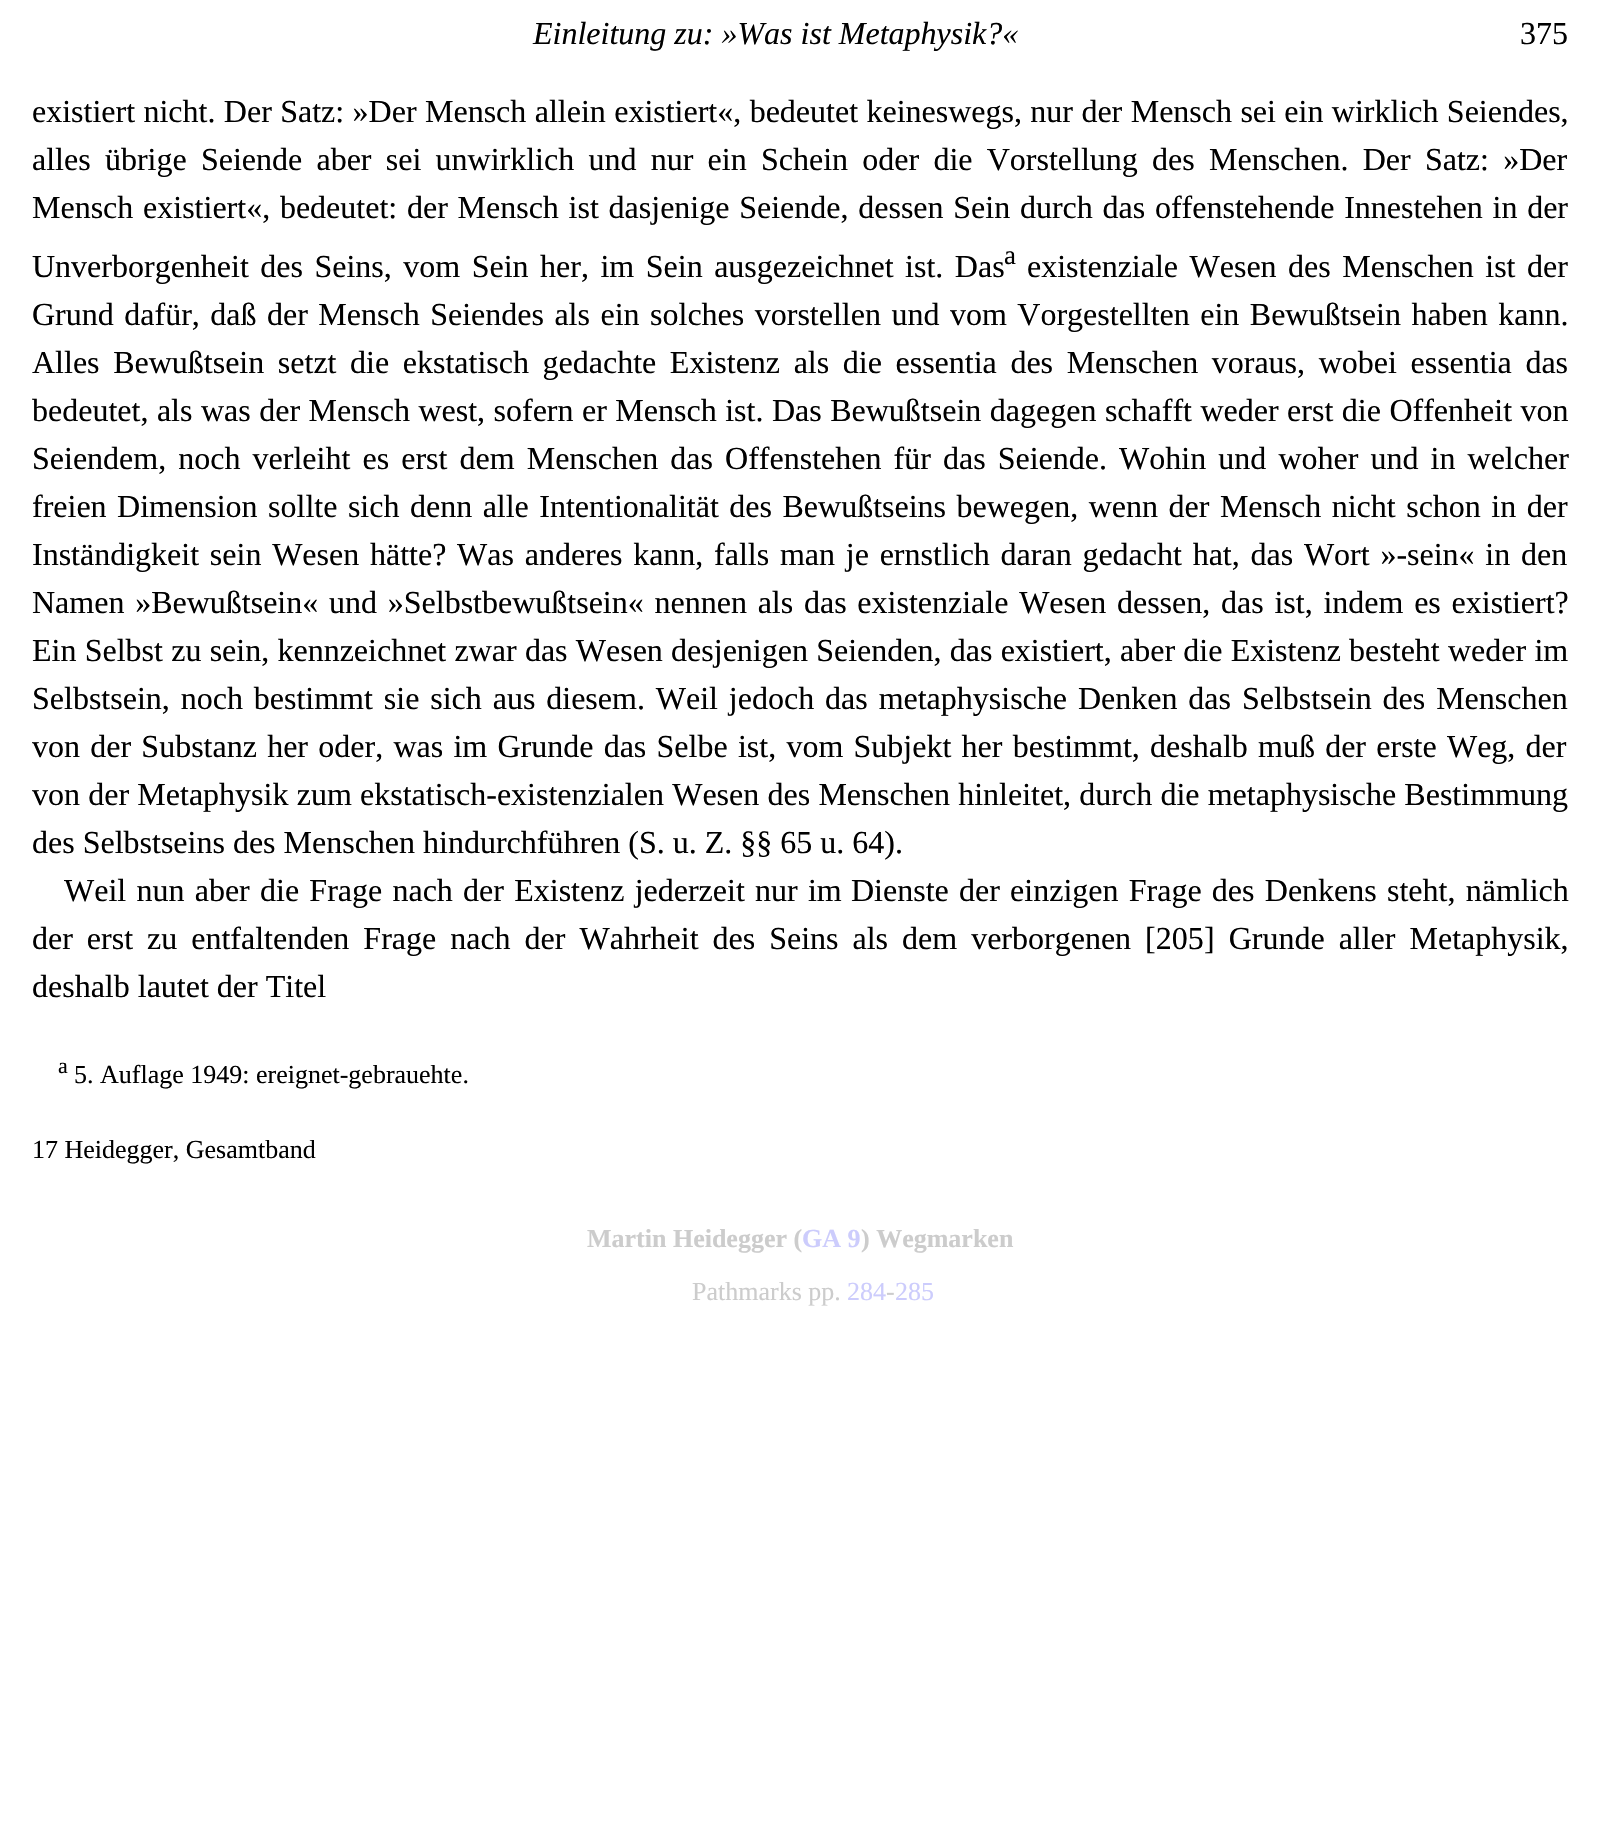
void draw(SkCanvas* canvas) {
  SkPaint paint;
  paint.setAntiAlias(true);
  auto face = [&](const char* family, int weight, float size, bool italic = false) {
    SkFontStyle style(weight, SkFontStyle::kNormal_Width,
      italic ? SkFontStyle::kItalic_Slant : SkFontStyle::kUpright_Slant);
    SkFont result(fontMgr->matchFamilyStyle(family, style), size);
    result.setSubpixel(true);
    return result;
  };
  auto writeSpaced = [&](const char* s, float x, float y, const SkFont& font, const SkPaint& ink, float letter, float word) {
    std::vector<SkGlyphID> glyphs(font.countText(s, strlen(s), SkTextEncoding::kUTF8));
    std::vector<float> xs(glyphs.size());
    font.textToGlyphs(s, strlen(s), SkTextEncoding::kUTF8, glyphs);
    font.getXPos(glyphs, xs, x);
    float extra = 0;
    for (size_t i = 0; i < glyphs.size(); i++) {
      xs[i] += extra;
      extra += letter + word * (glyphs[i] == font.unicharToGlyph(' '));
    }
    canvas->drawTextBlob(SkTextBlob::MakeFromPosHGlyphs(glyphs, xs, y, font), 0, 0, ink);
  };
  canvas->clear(0xffffffff);
  auto f0 = face("Liberation Serif", 400, 32, true);
  paint.setColor(0xff000000);
  canvas->drawString("Einleitung zu: »Was ist Metaphysik?«", 533, 44, f0, paint);
  auto f1 = face("Liberation Serif", 400, 32);
  canvas->drawString("375", 1520, 44, f1, paint);
  writeSpaced("existiert nicht. Der Satz: »Der Mensch allein existiert«, bedeutet keineswegs, nur der Mensch sei ein wirklich Seiendes,", 32, 122, f1, paint, 0, 0.4f);
  writeSpaced("alles übrige Seiende aber sei unwirklich und nur ein Schein oder die Vorstellung des Menschen. Der Satz: »Der", 32, 170, f1, paint, 0, 6.25f);
  writeSpaced("Mensch existiert«, bedeutet: der Mensch ist dasjenige Seiende, dessen Sein durch das offenstehende Innestehen in der", 32, 218, f1, paint, 0, 1.75f);
  writeSpaced("Unverborgenheit des Seins, vom Sein her, im Sein ausgezeichnet ist. Das", 32, 277, f1, paint, 0, 3.5f);
  auto f2 = face("Liberation Serif", 400, 27);
  canvas->drawString("a", 1004, 264, f2, paint);
  writeSpaced("existenziale Wesen des Menschen ist der", 1027, 277, f1, paint, 0, 3.5f);
  writeSpaced("Grund dafür, daß der Mensch Seiendes als ein solches vorstellen und vom Vorgestellten ein Bewußtsein haben kann.", 32, 325, f1, paint, 0, 2.5f);
  writeSpaced("Alles Bewußtsein setzt die ekstatisch gedachte Existenz als die essentia des Menschen voraus, wobei essentia das", 32, 373, f1, paint, 0, 5.6f);
  writeSpaced("bedeutet, als was der Mensch west, sofern er Mensch ist. Das Bewußtsein dagegen schafft weder erst die Offenheit von", 32, 421, f1, paint, 0, 0.5f);
  writeSpaced("Seiendem, noch verleiht es erst dem Menschen das Offenstehen für das Seiende. Wohin und woher und in welcher", 32, 469, f1, paint, 0, 4.1f);
  writeSpaced("freien Dimension sollte sich denn alle Intentionalität des Bewußtseins bewegen, wenn der Mensch nicht schon in der", 32, 517, f1, paint, 0, 2.5f);
  writeSpaced("Inständigkeit sein Wesen hätte? Was anderes kann, falls man je ernstlich daran gedacht hat, das Wort »-sein« in den", 32, 565, f1, paint, 0, 2.75f);
  writeSpaced("Namen »Bewußtsein« und »Selbstbewußtsein« nennen als das existenziale Wesen dessen, das ist, indem es existiert?", 32, 613, f1, paint, 0, 2.75f);
  writeSpaced("Ein Selbst zu sein, kennzeichnet zwar das Wesen desjenigen Seienden, das existiert, aber die Existenz besteht weder im", 32, 661, f1, paint, 0, 0.25f);
  writeSpaced("Selbstsein, noch bestimmt sie sich aus diesem. Weil jedoch das metaphysische Denken das Selbstsein des Menschen", 32, 709, f1, paint, 0, 2.9f);
  writeSpaced("von der Substanz her oder, was im Grunde das Selbe ist, vom Subjekt her bestimmt, deshalb muß der erste Weg, der", 32, 757, f1, paint, 0, 2.25f);
  writeSpaced("von der Metaphysik zum ekstatisch-existenzialen Wesen des Menschen hinleitet, durch die metaphysische Bestimmung", 32, 805, f1, paint, 0, 0.25f);
  canvas->drawString("des Selbstseins des Menschen hindurchführen (S. u. Z. §§ 65 u. 64).", 32, 853, f1, paint);
  writeSpaced("Weil nun aber die Frage nach der Existenz jederzeit nur im", 64, 901, f1, paint, 0, 2.25f);
  writeSpaced("Dienste der einzigen Frage des Denkens steht, nämlich", 851, 901, f1, paint, 0, 2.25f);
  writeSpaced("der erst", 32, 949, f1, paint, 0, 6);
  writeSpaced("zu entfaltenden Frage nach der Wahrheit des Seins als dem verborgenen", 147, 949, f1, paint, 0, 6);
  canvas->drawString("[205", 1145, 949, f1, paint);
  writeSpaced("] Grunde aller Metaphysik,", 1204, 949, f1, paint, 0, 6);
  canvas->drawString("deshalb lautet der Titel", 32, 997, f1, paint);
  auto f3 = face("Liberation Serif", 400, 22);
  canvas->drawString("a", 58, 1073, f3, paint);
  auto f4 = face("Liberation Serif", 400, 26);
  canvas->drawString("5. Auflage 1949: ereignet-gebrauehte.", 74, 1083, f4, paint);
  canvas->drawString("17 Heidegger, Gesamtband", 32, 1158, f4, paint);
  auto f5 = face("Liberation Serif", 700, 26);
  paint.setColor(0xffcccccc);
  canvas->drawString("Martin Heidegger (", 587, 1247, f5, paint);
  paint.setColor(0xffccccfc);
  canvas->drawString("GA 9", 802, 1247, f5, paint);
  paint.setColor(0xffcccccc);
  canvas->drawString(") Wegmarken", 861, 1247, f5, paint);
  canvas->drawString("Pathmarks pp.", 692, 1300, f4, paint);
  paint.setColor(0xffccccfc);
  canvas->drawString("284", 847, 1300, f4, paint);
  paint.setColor(0xffcccccc);
  canvas->drawString("-", 886, 1300, f4, paint);
  paint.setColor(0xffccccfc);
  canvas->drawString("285", 895, 1300, f4, paint);
}
